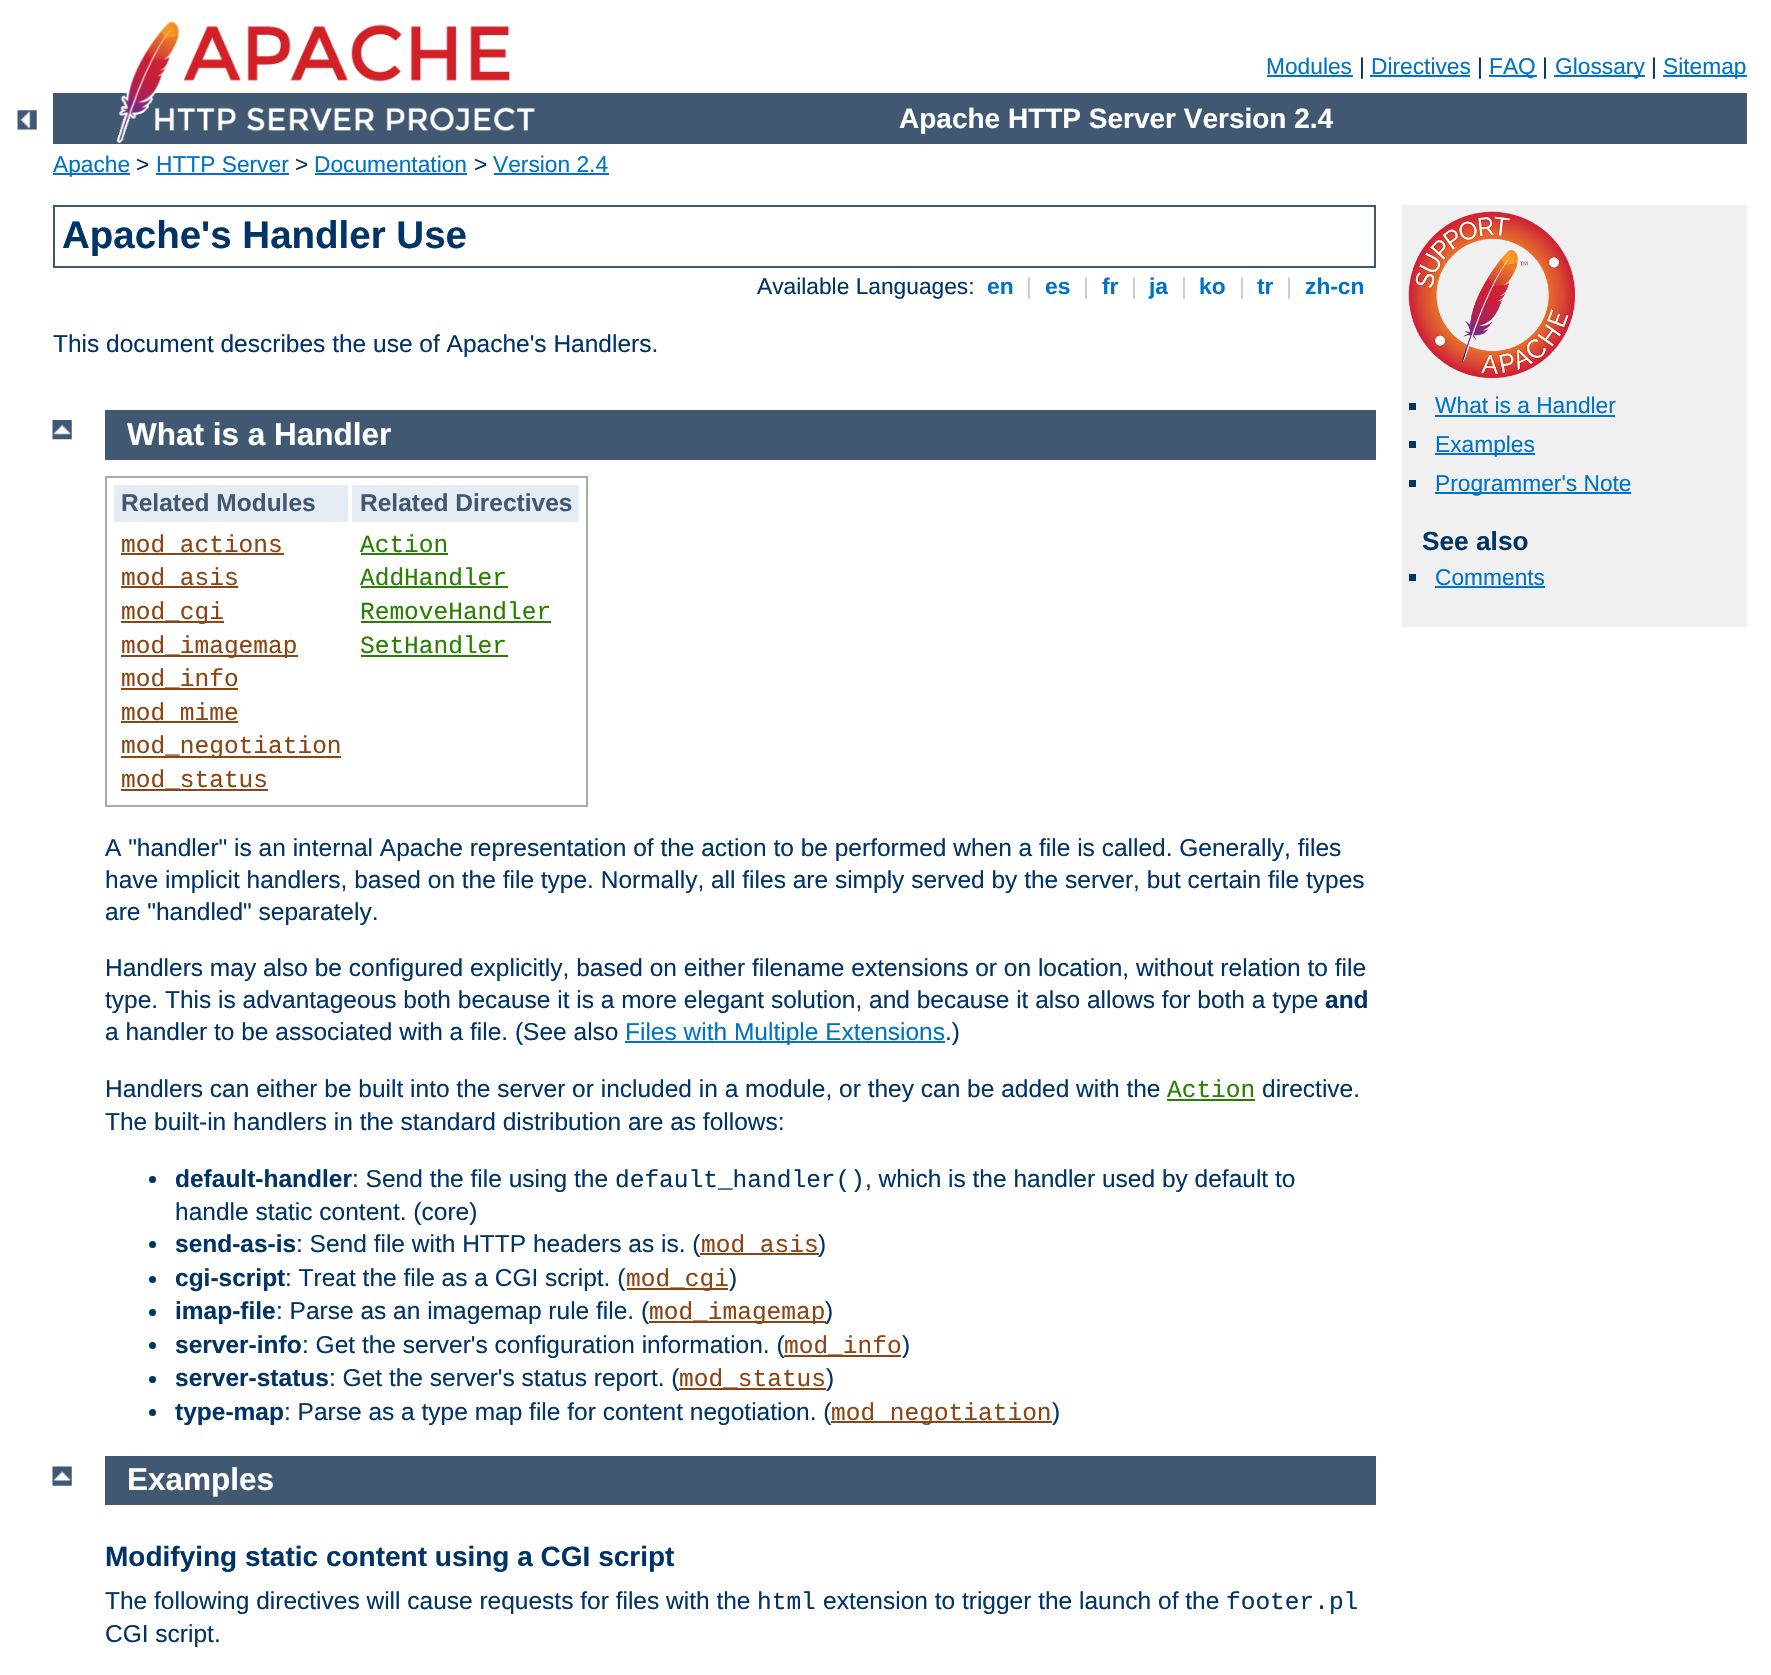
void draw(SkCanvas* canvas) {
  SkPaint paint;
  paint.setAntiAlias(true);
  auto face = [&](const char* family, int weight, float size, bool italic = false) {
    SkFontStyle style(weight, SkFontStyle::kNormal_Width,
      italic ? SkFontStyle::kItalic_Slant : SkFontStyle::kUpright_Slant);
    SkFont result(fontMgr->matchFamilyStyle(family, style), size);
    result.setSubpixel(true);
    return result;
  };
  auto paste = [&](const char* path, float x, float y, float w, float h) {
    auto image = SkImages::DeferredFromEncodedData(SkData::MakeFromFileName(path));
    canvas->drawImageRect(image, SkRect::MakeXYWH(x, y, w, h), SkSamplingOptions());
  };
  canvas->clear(0xffffffff);
  paste("img/1.png", 17, 110, 20, 20);
  paint.setColor(0xff405871);
  canvas->drawRect(SkRect::MakeXYWH(53, 93, 1694, 51), paint);
  paste("img/2.png", 117, 21, 418, 122);
  {
    const struct { float x, y, w, h; SkColor color; } items[] = {
      {1267, 75, 86, 2, 0xff0073c7},
      {1370, 75, 100, 2, 0xff0073c7},
      {1489, 75, 48, 2, 0xff0073c7},
      {1554, 75, 91, 2, 0xff0073c7},
      {1663, 75, 84, 2, 0xff0073c7},
      {53, 173, 77, 2, 0xff0073c7},
      {156, 173, 133, 2, 0xff0073c7},
      {315, 173, 152, 2, 0xff0073c7},
      {494, 173, 115, 2, 0xff0073c7},
    };
    for (auto [x, y, w, h, color] : items) {
      paint.setColor(color);
      canvas->drawRect(SkRect::MakeXYWH(x, y, w, h), paint);
    }
  }
  paint.setStroke(true);
  paint.setStrokeWidth(2);
  paint.setColor(0xff405871);
  canvas->drawRect(SkRect::MakeXYWH(54, 206, 1321, 61), paint);
  paste("img/3.png", 52, 420, 20, 20);
  paint.setStroke(false);
  canvas->drawRect(SkRect::MakeXYWH(105, 410, 1271, 50), paint);
  paint.setStroke(true);
  paint.setColor(0xffaaaaaa);
  canvas->drawRect(SkRect::MakeXYWH(106, 477, 481, 329), paint);
  paint.setStroke(false);
  {
    const struct { float x, y, w, h; SkColor color; } items[] = {
      {114, 485, 234, 37, 0xffe5ecf3},
      {352, 485, 227, 37, 0xffe5ecf3},
      {121, 553, 163, 2, 0xff8b4513},
      {121, 586, 117, 2, 0xff8b4513},
      {121, 621, 103, 2, 0xff8b4513},
      {121, 655, 177, 2, 0xff8b4513},
      {121, 688, 117, 2, 0xff8b4513},
      {121, 721, 117, 2, 0xff8b4513},
      {121, 756, 220, 2, 0xff8b4513},
      {121, 789, 147, 2, 0xff8b4513},
      {361, 553, 87, 2, 0xff287f00},
      {361, 586, 147, 2, 0xff287f00},
      {361, 621, 190, 2, 0xff287f00},
      {361, 655, 147, 2, 0xff287f00},
      {625, 1041, 320, 2, 0xff0073c7},
      {1167, 1099, 88, 2, 0xff287f00},
    };
    for (auto [x, y, w, h, color] : items) {
      paint.setColor(color);
      canvas->drawRect(SkRect::MakeXYWH(x, y, w, h), paint);
    }
  }
  paint.setColor(0xff003366);
  canvas->drawCircle(152.5f, 1179.5f, 3.5f, paint);
  canvas->drawCircle(152.5f, 1244.5f, 3.5f, paint);
  canvas->drawCircle(152.5f, 1279.5f, 3.5f, paint);
  paint.setColor(0xff8b4513);
  canvas->drawRect(SkRect::MakeXYWH(627, 1288, 101, 2), paint);
  paint.setColor(0xff003366);
  canvas->drawCircle(152.5f, 1312.5f, 3.5f, paint);
  paint.setColor(0xff8b4513);
  canvas->drawRect(SkRect::MakeXYWH(649, 1321, 177, 2), paint);
  paint.setColor(0xff003366);
  canvas->drawCircle(152.5f, 1345.5f, 3.5f, paint);
  canvas->drawCircle(152.5f, 1379.5f, 3.5f, paint);
  canvas->drawCircle(152.5f, 1412.5f, 3.5f, paint);
  paint.setColor(0xfff0f0f0);
  canvas->drawRect(SkRect::MakeXYWH(1402, 205, 345, 422), paint);
  paste("img/4.png", 1408, 211, 167, 167);
  {
    const struct { float x, y, w, h; SkColor color; } items[] = {
      {1409, 403, 7, 7, 0xff003366},
      {1435, 415, 180, 2, 0xff0073c7},
      {1409, 441, 7, 7, 0xff003366},
      {1435, 453, 100, 2, 0xff0073c7},
      {1409, 480, 7, 7, 0xff003366},
      {1435, 492, 196, 2, 0xff0073c7},
      {1409, 574, 7, 7, 0xff003366},
      {1435, 586, 110, 2, 0xff0073c7},
    };
    for (auto [x, y, w, h, color] : items) {
      paint.setColor(color);
      canvas->drawRect(SkRect::MakeXYWH(x, y, w, h), paint);
    }
  }
  paste("img/5.png", 52, 1466, 20, 20);
  paint.setColor(0xff405871);
  canvas->drawRect(SkRect::MakeXYWH(105, 1456, 1271, 49), paint);
  auto f0 = face("Liberation Sans", 400, 22.75f);
  paint.setColor(0xff0073c7);
  canvas->drawString("Modules", 1266, 74, f0, paint);
  paint.setColor(0xff003366);
  canvas->drawString("|", 1359, 74, f0, paint);
  paint.setColor(0xff0073c7);
  canvas->drawString("Directives", 1371, 74, f0, paint);
  paint.setColor(0xff003366);
  canvas->drawString("|", 1477, 74, f0, paint);
  paint.setColor(0xff0073c7);
  canvas->drawString("FAQ", 1489, 74, f0, paint);
  paint.setColor(0xff003366);
  canvas->drawString("|", 1542, 74, f0, paint);
  paint.setColor(0xff0073c7);
  canvas->drawString("Glossary", 1555, 74, f0, paint);
  paint.setColor(0xff003366);
  canvas->drawString("|", 1651, 74, f0, paint);
  paint.setColor(0xff0073c7);
  canvas->drawString("Sitemap", 1663, 74, f0, paint);
  auto f1 = face("Liberation Sans", 700, 28);
  paint.setColor(0xffffffff);
  canvas->drawString("Apache HTTP Server Version 2.4", 899, 128, f1, paint);
  paint.setColor(0xff0073c7);
  canvas->drawString("Apache", 53, 172, f0, paint);
  paint.setColor(0xff003366);
  canvas->drawString(">", 136, 172, f0, paint);
  paint.setColor(0xff0073c7);
  canvas->drawString("HTTP Server", 156, 172, f0, paint);
  paint.setColor(0xff003366);
  canvas->drawString(">", 295, 172, f0, paint);
  paint.setColor(0xff0073c7);
  canvas->drawString("Documentation", 314, 172, f0, paint);
  paint.setColor(0xff003366);
  canvas->drawString(">", 474, 172, f0, paint);
  paint.setColor(0xff0073c7);
  canvas->drawString("Version 2.4", 493, 172, f0, paint);
  auto f2 = face("Liberation Sans", 700, 38.5f);
  paint.setColor(0xff003366);
  canvas->drawString("Apache's Handler Use", 62, 248, f2, paint);
  canvas->drawString("Available Languages:", 757, 294, f0, paint);
  auto f3 = face("Liberation Sans", 700, 22.75f);
  paint.setColor(0xff0073c7);
  canvas->drawString("en", 987, 294, f3, paint);
  paint.setColor(0xffcccccc);
  canvas->drawString("|", 1026, 294, f0, paint);
  paint.setColor(0xff0073c7);
  canvas->drawString("es", 1045, 294, f3, paint);
  paint.setColor(0xffcccccc);
  canvas->drawString("|", 1083, 294, f0, paint);
  paint.setColor(0xff0073c7);
  canvas->drawString("fr", 1102, 294, f3, paint);
  paint.setColor(0xffcccccc);
  canvas->drawString("|", 1131, 294, f0, paint);
  paint.setColor(0xff0073c7);
  canvas->drawString("ja", 1149, 294, f3, paint);
  paint.setColor(0xffcccccc);
  canvas->drawString("|", 1181, 294, f0, paint);
  paint.setColor(0xff0073c7);
  canvas->drawString("ko", 1199, 294, f3, paint);
  paint.setColor(0xffcccccc);
  canvas->drawString("|", 1239, 294, f0, paint);
  paint.setColor(0xff0073c7);
  canvas->drawString("tr", 1257, 294, f3, paint);
  paint.setColor(0xffcccccc);
  canvas->drawString("|", 1286, 294, f0, paint);
  paint.setColor(0xff0073c7);
  canvas->drawString("zh-cn", 1305, 294, f3, paint);
  auto f4 = face("Liberation Sans", 400, 24.5f);
  paint.setColor(0xff003366);
  canvas->drawString("This document describes the use of Apache's Handlers.", 53, 352, f4, paint);
  auto f5 = face("Liberation Sans", 700, 31.5f);
  paint.setColor(0xffffffff);
  canvas->drawString("What is a Handler", 127, 445, f5, paint);
  auto f6 = face("Liberation Sans", 700, 24.5f);
  paint.setColor(0xff405871);
  canvas->drawString("Related Modules", 121, 511, f6, paint);
  canvas->drawString("Related Directives", 360, 511, f6, paint);
  auto f7 = face("Liberation Mono", 400, 24.5f);
  paint.setColor(0xff8b4513);
  {
    const struct { const char* s; float x, y; } items[] = {
      {"mod_actions", 121, 552},
      {"mod_asis", 121, 585},
      {"mod_cgi", 121, 619},
      {"mod_imagemap", 121, 653},
      {"mod_info", 121, 686},
      {"mod_mime", 121, 720},
      {"mod_negotiation", 121, 753},
      {"mod_status", 121, 787},
    };
    for (auto [s, x, y] : items) {
      canvas->drawString(s, x, y, f7, paint);
    }
  }
  paint.setColor(0xff287f00);
  {
    const struct { const char* s; float x, y; } items[] = {
      {"Action", 360, 552},
      {"AddHandler", 360, 585},
      {"RemoveHandler", 360, 619},
      {"SetHandler", 360, 653},
    };
    for (auto [s, x, y] : items) {
      canvas->drawString(s, x, y, f7, paint);
    }
  }
  paint.setColor(0xff003366);
  {
    const struct { const char* s; float x, y; } items[] = {
      {"A \"handler\" is an internal Apache representation of the action to be performed when a file is called. Generally, files", 105, 856},
      {"have implicit handlers, based on the file type. Normally, all files are simply served by the server, but certain file types", 105, 888},
      {"are \"handled\" separately.", 105, 920},
      {"Handlers may also be configured explicitly, based on either filename extensions or on location, without relation to file", 105, 976},
      {"type. This is advantageous both because it is a more elegant solution, and because it also allows for both a type", 105, 1008},
    };
    for (auto [s, x, y] : items) {
      canvas->drawString(s, x, y, f4, paint);
    }
  }
  canvas->drawString("and", 1325, 1008, f6, paint);
  canvas->drawString("a handler to be associated with a file. (See also", 105, 1040, f4, paint);
  paint.setColor(0xff0073c7);
  canvas->drawString("Files with Multiple Extensions", 625, 1040, f4, paint);
  paint.setColor(0xff003366);
  canvas->drawString(".)", 945, 1040, f4, paint);
  canvas->drawString("Handlers can either be built into the server or included in a module, or they can be added with the", 105, 1097, f4, paint);
  paint.setColor(0xff287f00);
  canvas->drawString("Action", 1167, 1097, f7, paint);
  paint.setColor(0xff003366);
  canvas->drawString("directive.", 1262, 1097, f4, paint);
  canvas->drawString("The built-in handlers in the standard distribution are as follows:", 105, 1130, f4, paint);
  canvas->drawString("default-handler", 175, 1187, f6, paint);
  canvas->drawString(": Send the file using the", 352, 1187, f4, paint);
  canvas->drawString("default_handler()", 615, 1187, f7, paint);
  canvas->drawString(", which is the handler used by default to", 865, 1187, f4, paint);
  canvas->drawString("handle static content. (core)", 175, 1220, f4, paint);
  canvas->drawString("send-as-is", 175, 1252, f6, paint);
  canvas->drawString(": Send file with HTTP headers as is. (", 296, 1252, f4, paint);
  paint.setColor(0xff8b4513);
  canvas->drawRect(SkRect::MakeXYWH(700, 1253, 119, 2), paint);
  canvas->drawString("mod_asis", 701, 1252, f7, paint);
  paint.setColor(0xff003366);
  canvas->drawString(")", 818, 1252, f4, paint);
  canvas->drawString("cgi-script", 175, 1286, f6, paint);
  canvas->drawString(": Treat the file as a CGI script. (", 285, 1286, f4, paint);
  paint.setColor(0xff8b4513);
  canvas->drawString("mod_cgi", 626, 1286, f7, paint);
  paint.setColor(0xff003366);
  canvas->drawString(")", 729, 1286, f4, paint);
  canvas->drawString("imap-file", 175, 1319, f6, paint);
  canvas->drawString(": Parse as an imagemap rule file. (", 276, 1319, f4, paint);
  paint.setColor(0xff8b4513);
  canvas->drawString("mod_imagemap", 649, 1319, f7, paint);
  paint.setColor(0xff003366);
  canvas->drawString(")", 825, 1319, f4, paint);
  canvas->drawString("server-info", 175, 1353, f6, paint);
  canvas->drawString(": Get the server's configuration information. (", 302, 1353, f4, paint);
  paint.setColor(0xff8b4513);
  canvas->drawRect(SkRect::MakeXYWH(784, 1355, 117, 2), paint);
  canvas->drawString("mod_info", 784, 1353, f7, paint);
  paint.setColor(0xff003366);
  canvas->drawString(")", 902, 1353, f4, paint);
  canvas->drawString("server-status", 175, 1386, f6, paint);
  canvas->drawString(": Get the server's status report. (", 329, 1386, f4, paint);
  paint.setColor(0xff8b4513);
  canvas->drawRect(SkRect::MakeXYWH(679, 1388, 147, 2), paint);
  canvas->drawString("mod_status", 679, 1386, f7, paint);
  paint.setColor(0xff003366);
  canvas->drawString(")", 826, 1386, f4, paint);
  canvas->drawString("type-map", 175, 1420, f6, paint);
  canvas->drawString(": Parse as a type map file for content negotiation. (", 284, 1420, f4, paint);
  paint.setColor(0xff8b4513);
  canvas->drawRect(SkRect::MakeXYWH(831, 1421, 221, 2), paint);
  canvas->drawString("mod_negotiation", 831, 1420, f7, paint);
  paint.setColor(0xff003366);
  canvas->drawString(")", 1052, 1420, f4, paint);
  paint.setColor(0xff0073c7);
  {
    const struct { const char* s; float x, y; } items[] = {
      {"What is a Handler", 1435, 413},
      {"Examples", 1435, 452},
      {"Programmer's Note", 1435, 491},
    };
    for (auto [s, x, y] : items) {
      canvas->drawString(s, x, y, f0, paint);
    }
  }
  auto f8 = face("Liberation Sans", 700, 26.25f);
  paint.setColor(0xff003366);
  canvas->drawString("See also", 1422, 550, f8, paint);
  paint.setColor(0xff0073c7);
  canvas->drawString("Comments", 1435, 585, f0, paint);
  paint.setColor(0xffffffff);
  canvas->drawString("Examples", 127, 1490, f5, paint);
  paint.setColor(0xff003366);
  canvas->drawString("Modifying static content using a CGI script", 105, 1566, f1, paint);
  canvas->drawString("The following directives will cause requests for files with the", 105, 1609, f4, paint);
  canvas->drawString("html", 757, 1609, f7, paint);
  canvas->drawString("extension to trigger the launch of the", 823, 1609, f4, paint);
  canvas->drawString("footer.pl", 1226, 1609, f7, paint);
  canvas->drawString("CGI script.", 105, 1642, f4, paint);
}
